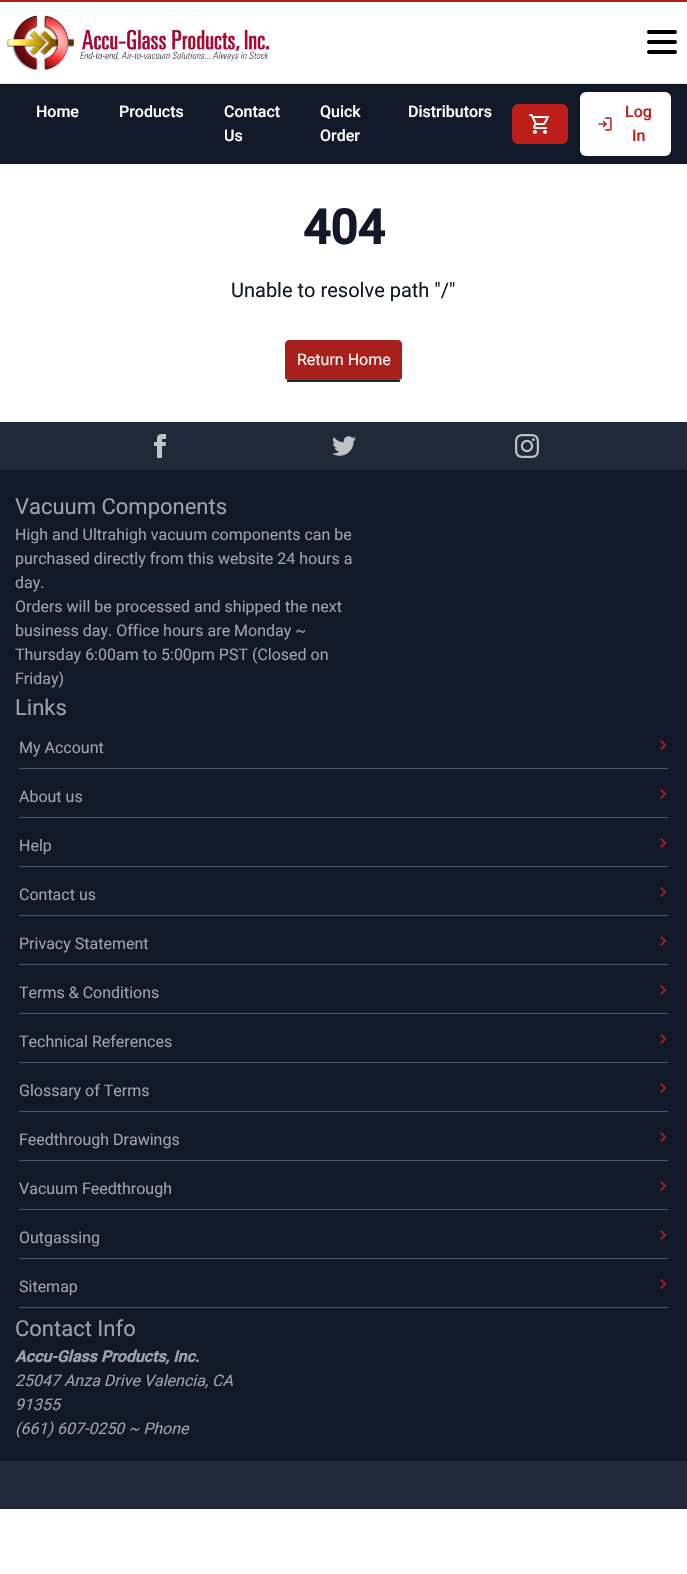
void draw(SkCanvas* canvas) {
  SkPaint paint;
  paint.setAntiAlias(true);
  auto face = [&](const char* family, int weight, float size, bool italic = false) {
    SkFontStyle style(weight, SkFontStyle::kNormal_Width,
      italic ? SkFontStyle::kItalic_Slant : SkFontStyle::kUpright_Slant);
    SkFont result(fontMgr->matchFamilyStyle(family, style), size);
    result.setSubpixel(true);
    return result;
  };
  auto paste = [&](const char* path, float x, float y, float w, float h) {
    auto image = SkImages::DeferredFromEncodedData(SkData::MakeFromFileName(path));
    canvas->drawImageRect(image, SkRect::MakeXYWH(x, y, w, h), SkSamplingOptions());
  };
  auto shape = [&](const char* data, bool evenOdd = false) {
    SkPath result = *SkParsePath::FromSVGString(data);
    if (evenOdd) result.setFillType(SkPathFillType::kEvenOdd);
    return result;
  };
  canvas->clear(0xffffffff);
  paint.setColor(0xffa8201b);
  canvas->drawRect(SkRect::MakeXYWH(0, 0, 687, 2), paint);
  paint.setColor(0xffe3e7e8);
  canvas->drawRect(SkRect::MakeXYWH(0, 83, 687, 1), paint);
  paste("img/1.png", 6, 15, 264, 56);
  paint.setColor(0xff000000);
  canvas->drawRoundRect(SkRect::MakeXYWH(647, 40, 30, 4), 2, 2, paint);
  canvas->drawRoundRect(SkRect::MakeXYWH(647, 30, 30, 4), 2, 2, paint);
  canvas->drawRoundRect(SkRect::MakeXYWH(647, 50, 30, 4), 2, 2, paint);
  paint.setColor(0xff111827);
  canvas->drawRect(SkRect::MakeXYWH(0, 84, 687, 80), paint);
  paint.setColor(0xffbc1f19);
  canvas->drawRoundRect(SkRect::MakeXYWH(512, 104, 56, 40), 6, 6, paint);
  paste("img/2.png", 529, 114, 20, 20);
  paint.setColor(0xffffffff);
  canvas->drawRoundRect(SkRect::MakeXYWH(580, 92, 91, 64), 6, 6, paint);
  paste("img/3.png", 598, 117, 14, 14);
  paint.setColor(0xffa8201b);
  canvas->drawPath(shape("M289 340H398C400 340 402 342 402 344V378C402 379 400 380 398 380H289C287 380 285 379 285 378V344C285 342 287 340 289 340Z"), paint);
  paint.setColor(0xff1f2937);
  canvas->drawRect(SkRect::MakeXYWH(287, 380, 113, 2), paint);
  canvas->drawRect(SkRect::MakeXYWH(0, 422, 687, 48), paint);
  paste("img/4.png", 154, 434, 12, 24);
  paste("img/5.png", 332, 436, 24, 20);
  paste("img/6.png", 515, 434, 24, 24);
  paint.setColor(0xff111827);
  canvas->drawRect(SkRect::MakeXYWH(0, 470, 687, 991), paint);
  paint.setColor(0xff4b5563);
  canvas->drawRect(SkRect::MakeXYWH(19, 768, 649, 1), paint);
  paste("img/7.png", 660, 740, 7, 10);
  canvas->drawRect(SkRect::MakeXYWH(19, 817, 649, 1), paint);
  paste("img/7.png", 660, 789, 7, 10);
  canvas->drawRect(SkRect::MakeXYWH(19, 866, 649, 1), paint);
  paste("img/7.png", 660, 838, 7, 10);
  canvas->drawRect(SkRect::MakeXYWH(19, 915, 649, 1), paint);
  paste("img/7.png", 660, 887, 7, 10);
  canvas->drawRect(SkRect::MakeXYWH(19, 964, 649, 1), paint);
  paste("img/7.png", 660, 936, 7, 10);
  canvas->drawRect(SkRect::MakeXYWH(19, 1013, 649, 1), paint);
  paste("img/7.png", 660, 985, 7, 10);
  canvas->drawRect(SkRect::MakeXYWH(19, 1062, 649, 1), paint);
  paste("img/7.png", 660, 1034, 7, 10);
  canvas->drawRect(SkRect::MakeXYWH(19, 1111, 649, 1), paint);
  paste("img/7.png", 660, 1083, 7, 10);
  canvas->drawRect(SkRect::MakeXYWH(19, 1160, 649, 1), paint);
  paste("img/7.png", 660, 1132, 7, 10);
  canvas->drawRect(SkRect::MakeXYWH(19, 1209, 649, 1), paint);
  paste("img/7.png", 660, 1181, 7, 10);
  canvas->drawRect(SkRect::MakeXYWH(19, 1258, 649, 1), paint);
  paste("img/7.png", 660, 1230, 7, 10);
  canvas->drawRect(SkRect::MakeXYWH(19, 1307, 649, 1), paint);
  paste("img/7.png", 660, 1279, 7, 10);
  paint.setColor(0xff1f2937);
  canvas->drawRect(SkRect::MakeXYWH(0, 1461, 687, 48), paint);
  auto f0 = face("Roboto", 500, 16);
  paint.setColor(0xffffffff);
  {
    const struct { const char* s; float x, y; } items[] = {
      {"Home", 36, 117},
      {"Products", 119, 117},
      {"Contact", 224, 117},
      {"Us", 224, 141},
      {"Quick", 320, 117},
      {"Order", 320, 141},
      {"Distributors", 408, 117},
    };
    for (auto [s, x, y] : items) {
      canvas->drawString(s, x, y, f0, paint);
    }
  }
  paint.setColor(0xffbc1f19);
  canvas->drawString("Log", 625, 117, f0, paint);
  canvas->drawString("In", 632, 141, f0, paint);
  auto f1 = face("Roboto", 700, 48);
  paint.setColor(0xff111827);
  canvas->drawString("404", 303, 244, f1, paint);
  auto f2 = face("Roboto", 400, 20);
  canvas->drawString("Unable to resolve path \"/\"", 231, 297, f2, paint);
  auto f3 = face("Roboto", 400, 16);
  paint.setColor(0xffffffff);
  canvas->drawString("Return Home", 297, 365, f3, paint);
  auto f4 = face("Roboto", 400, 22);
  paint.setColor(0xff9ca3af);
  canvas->drawString("Vacuum Components", 15, 514, f4, paint);
  {
    const struct { const char* s; float x, y; } items[] = {
      {"High and Ultrahigh vacuum components can be", 15, 540},
      {"purchased directly from this website 24 hours a", 15, 564},
      {"day.", 15, 588},
      {"Orders will be processed and shipped the next", 15, 612},
      {"business day. Office hours are Monday ~", 15, 636},
      {"Thursday 6:00am to 5:00pm PST (Closed on", 15, 660},
      {"Friday)", 15, 684},
    };
    for (auto [s, x, y] : items) {
      canvas->drawString(s, x, y, f3, paint);
    }
  }
  canvas->drawString("Links", 15, 715, f4, paint);
  {
    const struct { const char* s; float x, y; } items[] = {
      {"My Account", 19, 753},
      {"About us", 19, 802},
      {"Help", 19, 851},
      {"Contact us", 19, 900},
      {"Privacy Statement", 19, 949},
      {"Terms & Conditions", 19, 998},
      {"Technical References", 19, 1047},
      {"Glossary of Terms", 19, 1096},
      {"Feedthrough Drawings", 19, 1145},
      {"Vacuum Feedthrough", 19, 1194},
      {"Outgassing", 19, 1243},
      {"Sitemap", 19, 1292},
    };
    for (auto [s, x, y] : items) {
      canvas->drawString(s, x, y, f3, paint);
    }
  }
  canvas->drawString("Contact Info", 15, 1336, f4, paint);
  auto f5 = face("Roboto", 700, 16, true);
  canvas->drawString("Accu-Glass Products, Inc.", 15, 1362, f5, paint);
  auto f6 = face("Roboto", 400, 16, true);
  {
    const struct { const char* s; float x, y; } items[] = {
      {"25047 Anza Drive Valencia, CA", 15, 1386},
      {"91355", 15, 1410},
      {"(661) 607-0250 ~ Phone", 15, 1434},
    };
    for (auto [s, x, y] : items) {
      canvas->drawString(s, x, y, f6, paint);
    }
  }
}
